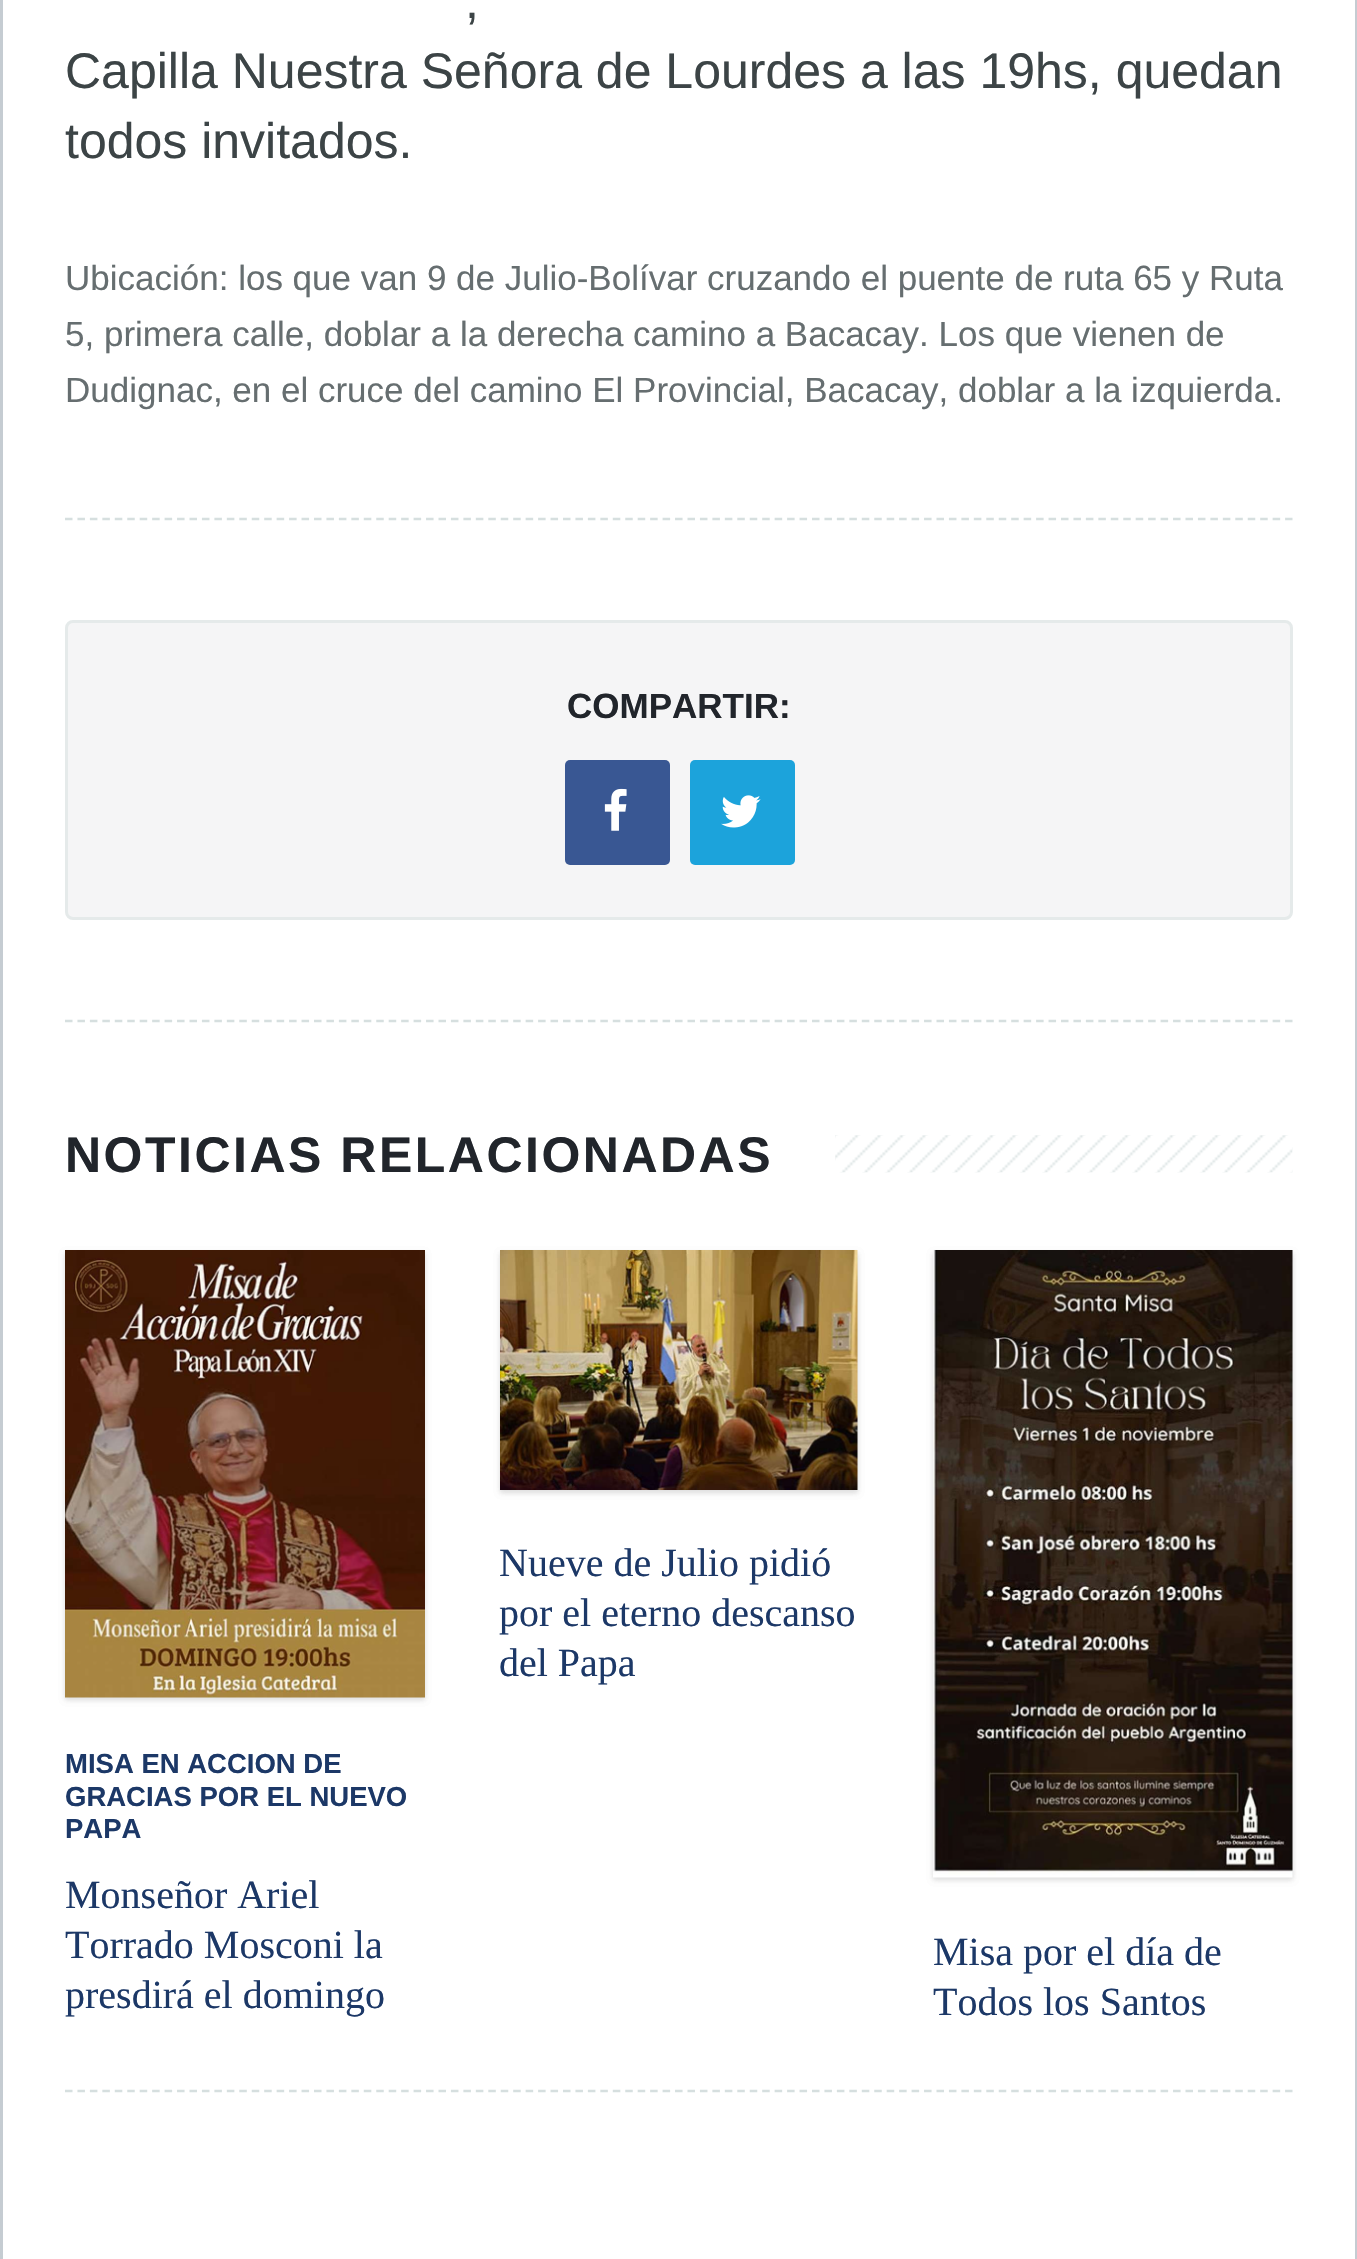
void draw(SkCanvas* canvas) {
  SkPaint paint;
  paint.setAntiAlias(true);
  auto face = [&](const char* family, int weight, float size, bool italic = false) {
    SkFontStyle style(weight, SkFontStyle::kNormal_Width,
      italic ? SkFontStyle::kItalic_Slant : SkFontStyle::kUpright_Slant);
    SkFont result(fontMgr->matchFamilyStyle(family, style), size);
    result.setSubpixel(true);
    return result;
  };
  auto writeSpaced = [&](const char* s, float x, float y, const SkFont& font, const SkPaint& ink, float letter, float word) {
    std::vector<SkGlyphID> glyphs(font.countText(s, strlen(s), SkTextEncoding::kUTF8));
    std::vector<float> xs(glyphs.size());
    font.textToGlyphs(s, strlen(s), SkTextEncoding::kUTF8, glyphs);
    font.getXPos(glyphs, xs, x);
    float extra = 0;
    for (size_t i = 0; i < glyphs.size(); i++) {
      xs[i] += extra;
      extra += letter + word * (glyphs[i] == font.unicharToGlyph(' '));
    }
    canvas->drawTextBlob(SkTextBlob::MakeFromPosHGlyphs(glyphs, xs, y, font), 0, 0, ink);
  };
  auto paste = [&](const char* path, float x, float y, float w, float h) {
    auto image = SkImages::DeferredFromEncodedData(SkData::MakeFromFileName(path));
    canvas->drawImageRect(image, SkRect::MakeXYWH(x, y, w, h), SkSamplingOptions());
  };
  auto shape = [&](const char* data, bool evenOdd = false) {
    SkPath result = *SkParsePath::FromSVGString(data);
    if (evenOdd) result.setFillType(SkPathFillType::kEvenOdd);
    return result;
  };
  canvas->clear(0xffffffff);
  paint.setColor(0xffc5ccd2);
  canvas->drawRect(SkRect::MakeXYWH(1355, 0, 2, 2259), paint);
  canvas->drawRect(SkRect::MakeXYWH(0, 0, 3, 2259), paint);
  paint.setStroke(true);
  paint.setStrokeWidth(2.5f);
  paint.setColor(0xffd6dfdf);
  paint.setPathEffect(SkDashPathEffect::Make({{7.5f, 4.95f}}, 0));
  canvas->drawPath(shape("M65 519H1292.5"), paint);
  paint.setPathEffect(nullptr);
  paint.setStroke(false);
  paint.setColor(0xfff5f5f6);
  canvas->drawRoundRect(SkRect::MakeXYWH(66.5f, 621.5f, 1225, 297), 6.5f, 6.5f, paint);
  paint.setStroke(true);
  paint.setStrokeWidth(3);
  paint.setColor(0xffe5eaea);
  canvas->drawRoundRect(SkRect::MakeXYWH(66.5f, 621.5f, 1225, 297), 6.5f, 6.5f, paint);
  paint.setStroke(false);
  paint.setColor(0xff395793);
  canvas->drawRoundRect(SkRect::MakeXYWH(565, 760, 105, 105), 5, 5, paint);
  paste("img/1.png", 604, 788, 23, 43);
  paint.setColor(0xff1ca3db);
  canvas->drawRoundRect(SkRect::MakeXYWH(690, 760, 105, 105), 5, 5, paint);
  paste("img/2.png", 721, 795, 40, 33);
  paint.setStroke(true);
  paint.setStrokeWidth(2.5f);
  paint.setColor(0xffd6dfdf);
  paint.setPathEffect(SkDashPathEffect::Make({{7.5f, 4.95f}}, 0));
  canvas->drawPath(shape("M65 1021H1292.5"), paint);
  paint.setPathEffect(nullptr);
  paste("img/3.png", 835, 1135, 458, 38);
  paint.setStroke(false);
  paint.setColor(0x12000000);
  paint.setMaskFilter(SkMaskFilter::MakeBlur(kNormal_SkBlurStyle, 2.5f));
  canvas->drawRect(SkRect::MakeXYWH(500, 1253, 358, 240), paint);
  paint.setMaskFilter(nullptr);
  paint.setMaskFilter(SkMaskFilter::MakeBlur(kNormal_SkBlurStyle, 2.5f));
  canvas->drawRect(SkRect::MakeXYWH(500, 1253, 358, 240), paint);
  paint.setMaskFilter(nullptr);
  paste("img/4.png", 500, 1250, 358, 240);
  paint.setMaskFilter(SkMaskFilter::MakeBlur(kNormal_SkBlurStyle, 2.5f));
  canvas->drawRect(SkRect::MakeXYWH(65, 1253, 360, 447), paint);
  paint.setMaskFilter(nullptr);
  paint.setMaskFilter(SkMaskFilter::MakeBlur(kNormal_SkBlurStyle, 2.5f));
  canvas->drawRect(SkRect::MakeXYWH(65, 1253, 360, 447), paint);
  paint.setMaskFilter(nullptr);
  paste("img/5.png", 65, 1250, 360, 448);
  paint.setMaskFilter(SkMaskFilter::MakeBlur(kNormal_SkBlurStyle, 2.5f));
  canvas->drawRect(SkRect::MakeXYWH(933, 1253, 360, 627), paint);
  paint.setMaskFilter(nullptr);
  paint.setMaskFilter(SkMaskFilter::MakeBlur(kNormal_SkBlurStyle, 2.5f));
  canvas->drawRect(SkRect::MakeXYWH(933, 1253, 360, 627), paint);
  paint.setMaskFilter(nullptr);
  paste("img/6.png", 933, 1250, 360, 628);
  paint.setStroke(true);
  paint.setColor(0xffd6dfdf);
  paint.setPathEffect(SkDashPathEffect::Make({{7.5f, 4.95f}}, 0));
  canvas->drawPath(shape("M65 2091H1292.5"), paint);
  paint.setPathEffect(nullptr);
  auto f0 = face("Liberation Sans", 400, 50);
  paint.setStroke(false);
  paint.setColor(0xff3c4446);
  {
    const struct { const char* s; float x, y; } items[] = {
      {",", 465, 18},
      {"Capilla Nuestra Señora de Lourdes a las 19hs, quedan", 65, 88},
      {"todos invitados.", 65, 158},
    };
    for (auto [s, x, y] : items) {
      canvas->drawString(s, x, y, f0, paint);
    }
  }
  auto f1 = face("Liberation Sans", 400, 35);
  paint.setColor(0xff666e70);
  {
    const struct { const char* s; float x, y; } items[] = {
      {"Ubicación: los que van 9 de Julio-Bolívar cruzando el puente de ruta 65 y Ruta", 65, 290},
      {"5, primera calle, doblar a la derecha camino a Bacacay. Los que vienen de", 65, 346},
      {"Dudignac, en el cruce del camino El Provincial, Bacacay, doblar a la izquierda.", 65, 402},
    };
    for (auto [s, x, y] : items) {
      canvas->drawString(s, x, y, f1, paint);
    }
  }
  auto f2 = face("Liberation Sans", 700, 35);
  paint.setColor(0xff21252b);
  canvas->drawString("COMPARTIR:", 567, 718, f2, paint);
  auto f3 = face("Liberation Sans", 700, 50);
  writeSpaced("NOTICIAS RELACIONADAS", 65, 1172, f3, paint, 2.5f, 0);
  auto f4 = face("Liberation Serif", 400, 40);
  paint.setColor(0xff1c3867);
  {
    const struct { const char* s; float x, y; } items[] = {
      {"Nueve de Julio pidió", 499, 1576},
      {"por el eterno descanso", 499, 1626},
      {"del Papa", 499, 1676},
    };
    for (auto [s, x, y] : items) {
      canvas->drawString(s, x, y, f4, paint);
    }
  }
  auto f5 = face("Liberation Sans", 700, 27.5f);
  {
    const struct { const char* s; float x, y; } items[] = {
      {"MISA EN ACCION DE", 65, 1773},
      {"GRACIAS POR EL NUEVO", 65, 1806},
      {"PAPA", 65, 1838},
    };
    for (auto [s, x, y] : items) {
      canvas->drawString(s, x, y, f5, paint);
    }
  }
  {
    const struct { const char* s; float x, y; } items[] = {
      {"Monseñor Ariel", 65, 1908},
      {"Torrado Mosconi la", 65, 1958},
      {"presdirá el domingo", 65, 2008},
      {"Misa por el día de", 933, 1965},
      {"Todos los Santos", 933, 2015},
    };
    for (auto [s, x, y] : items) {
      canvas->drawString(s, x, y, f4, paint);
    }
  }
}
